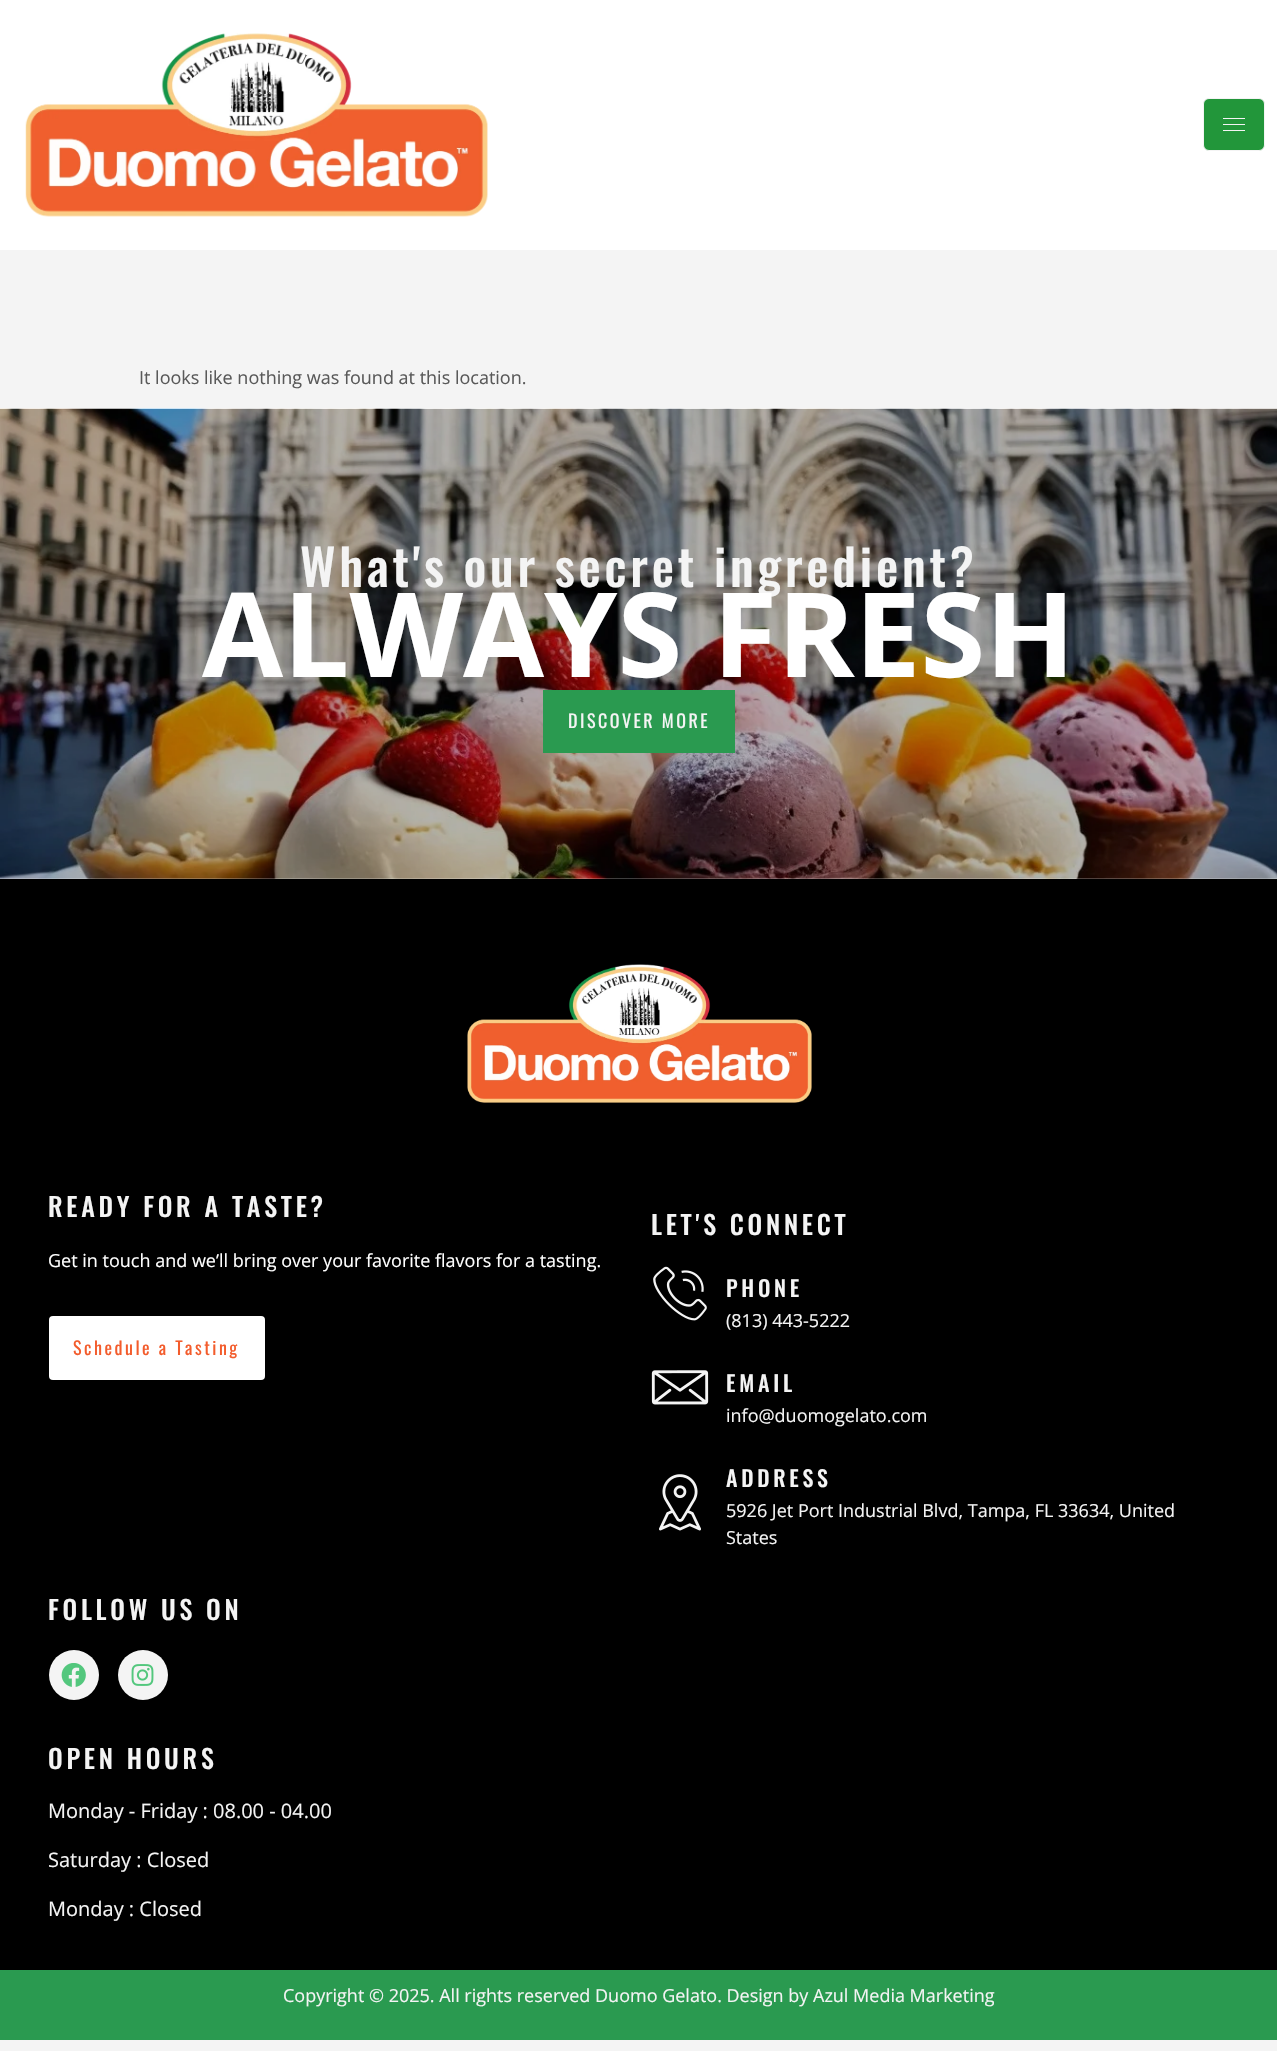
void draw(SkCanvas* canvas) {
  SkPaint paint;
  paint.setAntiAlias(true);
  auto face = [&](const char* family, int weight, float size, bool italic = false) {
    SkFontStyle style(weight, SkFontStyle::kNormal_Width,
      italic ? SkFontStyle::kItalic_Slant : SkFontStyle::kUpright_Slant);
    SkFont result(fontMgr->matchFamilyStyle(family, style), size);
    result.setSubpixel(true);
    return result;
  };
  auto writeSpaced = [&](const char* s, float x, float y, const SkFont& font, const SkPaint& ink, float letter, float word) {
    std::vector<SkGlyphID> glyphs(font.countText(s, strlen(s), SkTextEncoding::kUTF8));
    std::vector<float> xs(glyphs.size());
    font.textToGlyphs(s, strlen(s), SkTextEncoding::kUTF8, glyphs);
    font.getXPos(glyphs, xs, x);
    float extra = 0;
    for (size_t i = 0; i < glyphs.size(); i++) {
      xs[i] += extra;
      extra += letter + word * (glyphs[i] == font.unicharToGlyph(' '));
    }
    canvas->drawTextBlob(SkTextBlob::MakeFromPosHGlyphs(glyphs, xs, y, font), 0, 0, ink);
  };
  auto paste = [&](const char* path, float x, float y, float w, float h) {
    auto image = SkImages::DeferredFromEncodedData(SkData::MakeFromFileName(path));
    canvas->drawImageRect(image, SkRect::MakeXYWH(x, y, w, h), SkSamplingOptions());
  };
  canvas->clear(0xfff4f4f4);
  paint.setColor(0xffffffff);
  canvas->drawRect(SkRect::MakeXYWH(0, 0, 1277, 250), paint);
  paste("img/1.png", 25, 33, 463, 184);
  paint.setColor(0xff22963a);
  canvas->drawRoundRect(SkRect::MakeXYWH(1203.5f, 98.5f, 61, 52), 5.5f, 5.5f, paint);
  paint.setStroke(true);
  paint.setStrokeWidth(1);
  paint.setColor(0xfff4f4f4);
  canvas->drawRoundRect(SkRect::MakeXYWH(1203.5f, 98.5f, 61, 52), 5.5f, 5.5f, paint);
  paint.setStroke(false);
  {
    const struct { float x, y, w, h; SkColor color; } items[] = {
      {1223, 118, 22, 1, 0xfff4f4f4},
      {1223, 124, 22, 1, 0xfff4f4f4},
      {1223, 130, 22, 1, 0xfff4f4f4},
    };
    for (auto [x, y, w, h, color] : items) {
      paint.setColor(color);
      canvas->drawRect(SkRect::MakeXYWH(x, y, w, h), paint);
    }
  }
  paste("img/2.png", 0, 408, 1277, 471);
  paint.setColor(0xff2a9a50);
  canvas->drawRect(SkRect::MakeXYWH(543, 690, 192, 63), paint);
  paint.setColor(0xff000000);
  canvas->drawRect(SkRect::MakeXYWH(0, 879, 1277, 1091), paint);
  paste("img/3.png", 467, 964, 345, 139);
  paint.setColor(0xffffffff);
  canvas->drawRoundRect(SkRect::MakeXYWH(49, 1316, 216, 64), 4, 4, paint);
  paste("img/4.png", 653, 1266, 54, 55);
  paste("img/5.png", 651, 1370, 58, 35);
  paste("img/6.png", 659, 1474, 42, 57);
  paint.setColor(0xfff4f4f4);
  canvas->drawCircle(74, 1675, 25, paint);
  paste("img/7.png", 61, 1663, 25, 24);
  canvas->drawCircle(143, 1675, 25, paint);
  paste("img/8.png", 131, 1664, 23, 22);
  paint.setColor(0xff2a9a50);
  canvas->drawRect(SkRect::MakeXYWH(0, 1970, 1277, 70), paint);
  auto f0 = face("Open Sans", 400, 18);
  paint.setColor(0xff595959);
  canvas->drawString("It looks like nothing was found at this location.", 139, 384, f0, paint);
  auto f1 = face("Oswald", 500, 50);
  paint.setColor(0xfff4f4f4);
  writeSpaced("What's our secret ingredient?", 300, 587, f1, paint, 3.75f, 0);
  auto f2 = face("Open Sans", 700, 117.5f);
  paint.setColor(0xffffffff);
  canvas->drawString("ALWAYS FRESH", 202, 677, f2, paint);
  auto f3 = face("Oswald", 400, 18);
  paint.setColor(0xfff4f4f4);
  writeSpaced("DISCOVER MORE", 568, 728, f3, paint, 2.5f, 0);
  auto f4 = face("Oswald", 500, 26);
  writeSpaced("READY FOR A TASTE?", 48, 1217, f4, paint, 3.75f, 0);
  paint.setColor(0xffffffff);
  canvas->drawString("Get in touch and we’ll bring over your favorite flavors for a tasting.", 48, 1267, f0, paint);
  paint.setColor(0xfff35c2c);
  writeSpaced("Schedule a Tasting", 73, 1355, f3, paint, 2.5f, 0);
  paint.setColor(0xfff4f4f4);
  writeSpaced("LET'S CONNECT", 651, 1235, f4, paint, 3.75f, 0);
  auto f5 = face("Oswald", 500, 22);
  writeSpaced("PHONE", 726, 1297, f5, paint, 3.75f, 0);
  canvas->drawString("(813) 443-5222", 726, 1327, f0, paint);
  writeSpaced("EMAIL", 726, 1392, f5, paint, 3.75f, 0);
  canvas->drawString("info@duomogelato.com", 726, 1422, f0, paint);
  writeSpaced("ADDRESS", 726, 1487, f5, paint, 3.75f, 0);
  canvas->drawString("5926 Jet Port Industrial Blvd, Tampa, FL 33634, United", 726, 1517, f0, paint);
  canvas->drawString("States", 726, 1544, f0, paint);
  writeSpaced("FOLLOW US ON", 48, 1620, f4, paint, 3.75f, 0);
  writeSpaced("OPEN HOURS", 48, 1769, f4, paint, 3.75f, 0);
  auto f6 = face("Open Sans", 400, 20);
  {
    const struct { const char* s; float x, y; } items[] = {
      {"Monday - Friday : 08.00 - 04.00", 48, 1818},
      {"Saturday : Closed", 48, 1867},
      {"Monday : Closed", 48, 1916},
    };
    for (auto [s, x, y] : items) {
      canvas->drawString(s, x, y, f6, paint);
    }
  }
  canvas->drawString("Copyright © 2025. All rights reserved Duomo Gelato. Design by", 283, 2002, f0, paint);
  canvas->drawString("Azul Media Marketing", 813, 2002, f0, paint);
}
